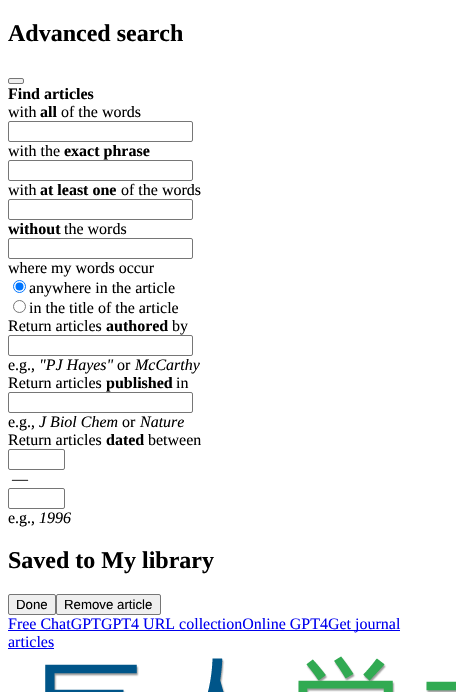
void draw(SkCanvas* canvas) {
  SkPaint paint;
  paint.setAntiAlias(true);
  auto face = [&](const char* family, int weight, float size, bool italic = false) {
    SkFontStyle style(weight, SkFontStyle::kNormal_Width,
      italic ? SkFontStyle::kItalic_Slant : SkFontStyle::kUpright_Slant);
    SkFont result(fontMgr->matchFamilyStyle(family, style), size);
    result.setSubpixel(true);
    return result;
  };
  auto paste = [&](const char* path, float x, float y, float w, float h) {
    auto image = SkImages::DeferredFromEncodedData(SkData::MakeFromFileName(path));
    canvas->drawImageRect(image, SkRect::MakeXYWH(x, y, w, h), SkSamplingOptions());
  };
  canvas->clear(0xffffffff);
  paint.setColor(0xffefefef);
  canvas->drawRoundRect(SkRect::MakeXYWH(8.5f, 78.5f, 15, 5), 1.5f, 1.5f, paint);
  paint.setStroke(true);
  paint.setStrokeWidth(1);
  paint.setColor(0xff767676);
  canvas->drawRoundRect(SkRect::MakeXYWH(8.5f, 78.5f, 15, 5), 1.5f, 1.5f, paint);
  canvas->drawRoundRect(SkRect::MakeXYWH(8.5f, 121.5f, 184, 20), 1.5f, 1.5f, paint);
  canvas->drawRoundRect(SkRect::MakeXYWH(8.5f, 160.5f, 184, 20), 1.5f, 1.5f, paint);
  canvas->drawRoundRect(SkRect::MakeXYWH(8.5f, 199.5f, 184, 20), 1.5f, 1.5f, paint);
  canvas->drawRoundRect(SkRect::MakeXYWH(8.5f, 238.5f, 184, 20), 1.5f, 1.5f, paint);
  paint.setColor(0xff0075ff);
  canvas->drawCircle(19.5f, 286.5f, 6, paint);
  paint.setStroke(false);
  canvas->drawCircle(19.5f, 286.5f, 4, paint);
  paint.setStroke(true);
  paint.setColor(0xff767676);
  canvas->drawCircle(19.5f, 306.5f, 6, paint);
  canvas->drawRoundRect(SkRect::MakeXYWH(8.5f, 335.5f, 184, 20), 1.5f, 1.5f, paint);
  canvas->drawRoundRect(SkRect::MakeXYWH(8.5f, 392.5f, 184, 20), 1.5f, 1.5f, paint);
  canvas->drawRoundRect(SkRect::MakeXYWH(8.5f, 449.5f, 56, 20), 1.5f, 1.5f, paint);
  canvas->drawRoundRect(SkRect::MakeXYWH(8.5f, 488.5f, 56, 20), 1.5f, 1.5f, paint);
  paint.setStroke(false);
  paint.setColor(0xffefefef);
  canvas->drawRoundRect(SkRect::MakeXYWH(8.5f, 594.5f, 47, 20), 1.5f, 1.5f, paint);
  paint.setStroke(true);
  paint.setColor(0xff767676);
  canvas->drawRoundRect(SkRect::MakeXYWH(8.5f, 594.5f, 47, 20), 1.5f, 1.5f, paint);
  paint.setStroke(false);
  paint.setColor(0xffefefef);
  canvas->drawRoundRect(SkRect::MakeXYWH(56.5f, 594.5f, 104, 20), 1.5f, 1.5f, paint);
  paint.setStroke(true);
  paint.setColor(0xff767676);
  canvas->drawRoundRect(SkRect::MakeXYWH(56.5f, 594.5f, 104, 20), 1.5f, 1.5f, paint);
  paint.setStroke(false);
  paint.setColor(0xff0000ee);
  canvas->drawRect(SkRect::MakeXYWH(8, 630, 392, 1), paint);
  canvas->drawRect(SkRect::MakeXYWH(8, 648, 46, 1), paint);
  paste("img/1.png", 45, 656, 411, 36);
  auto f0 = face("Liberation Serif", 700, 24);
  paint.setColor(0xff000000);
  canvas->drawString("Advanced search", 8, 41, f0, paint);
  auto f1 = face("Liberation Serif", 700, 16);
  canvas->drawString("Find articles", 8, 99, f1, paint);
  auto f2 = face("Liberation Serif", 400, 16);
  canvas->drawString("with", 8, 117, f2, paint);
  canvas->drawString("all", 40, 117, f1, paint);
  canvas->drawString("of the words", 61, 117, f2, paint);
  canvas->drawString("with the", 8, 156, f2, paint);
  canvas->drawString("exact phrase", 64, 156, f1, paint);
  canvas->drawString("with", 8, 195, f2, paint);
  canvas->drawString("at least one", 40, 195, f1, paint);
  canvas->drawString("of the words", 121, 195, f2, paint);
  canvas->drawString("without", 8, 234, f1, paint);
  {
    const struct { const char* s; float x, y; } items[] = {
      {"the words", 64, 234},
      {"where my words occur", 8, 273},
      {"anywhere in the article", 29, 293},
      {"in the title of the article", 29, 313},
      {"Return articles", 8, 331},
    };
    for (auto [s, x, y] : items) {
      canvas->drawString(s, x, y, f2, paint);
    }
  }
  canvas->drawString("authored", 106, 331, f1, paint);
  canvas->drawString("by", 172, 331, f2, paint);
  canvas->drawString("e.g.,", 8, 370, f2, paint);
  auto f3 = face("Liberation Serif", 400, 16, true);
  canvas->drawString("\"PJ Hayes\"", 39, 370, f3, paint);
  canvas->drawString("or", 117, 370, f2, paint);
  canvas->drawString("McCarthy", 135, 370, f3, paint);
  canvas->drawString("Return articles", 8, 388, f2, paint);
  canvas->drawString("published", 106, 388, f1, paint);
  canvas->drawString("in", 176, 388, f2, paint);
  canvas->drawString("e.g.,", 8, 427, f2, paint);
  canvas->drawString("J Biol Chem", 39, 427, f3, paint);
  canvas->drawString("or", 122, 427, f2, paint);
  canvas->drawString("Nature", 140, 427, f3, paint);
  canvas->drawString("Return articles", 8, 445, f2, paint);
  canvas->drawString("dated", 106, 445, f1, paint);
  {
    const struct { const char* s; float x, y; } items[] = {
      {"between", 148, 445},
      {"—", 12, 484},
      {"e.g.,", 8, 523},
    };
    for (auto [s, x, y] : items) {
      canvas->drawString(s, x, y, f2, paint);
    }
  }
  canvas->drawString("1996", 39, 523, f3, paint);
  canvas->drawString("Saved to My library", 8, 568, f0, paint);
  auto f4 = face("Liberation Sans", 400, 13.25f);
  canvas->drawString("Done", 16, 609, f4, paint);
  canvas->drawString("Remove article", 64, 609, f4, paint);
  paint.setColor(0xff0000ee);
  canvas->drawString("Free ChatGPTGPT4 URL collectionOnline GPT4Get journal", 8, 629, f2, paint);
  canvas->drawString("articles", 8, 647, f2, paint);
}
